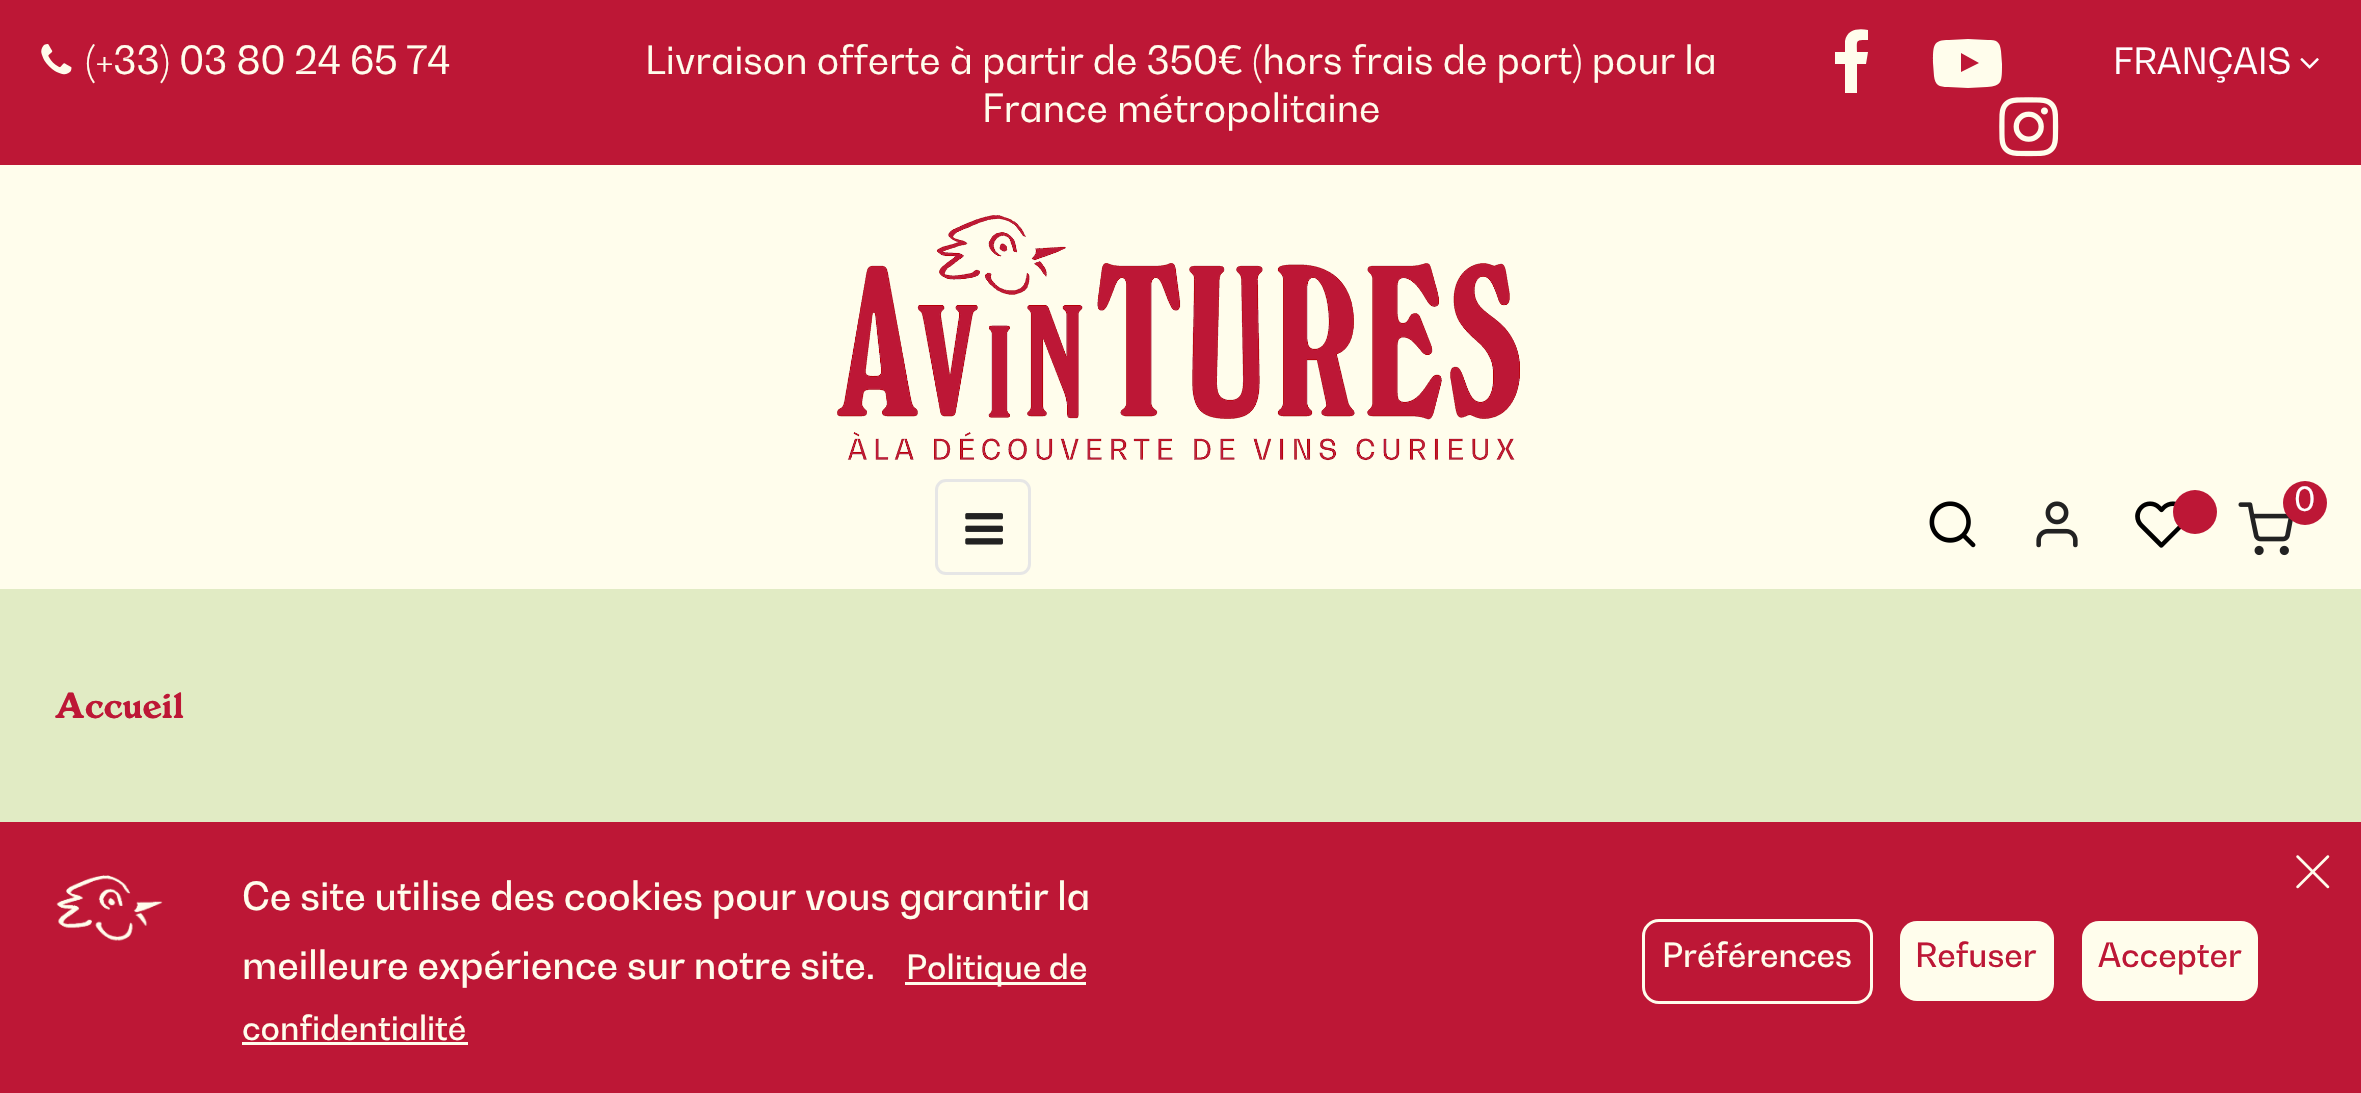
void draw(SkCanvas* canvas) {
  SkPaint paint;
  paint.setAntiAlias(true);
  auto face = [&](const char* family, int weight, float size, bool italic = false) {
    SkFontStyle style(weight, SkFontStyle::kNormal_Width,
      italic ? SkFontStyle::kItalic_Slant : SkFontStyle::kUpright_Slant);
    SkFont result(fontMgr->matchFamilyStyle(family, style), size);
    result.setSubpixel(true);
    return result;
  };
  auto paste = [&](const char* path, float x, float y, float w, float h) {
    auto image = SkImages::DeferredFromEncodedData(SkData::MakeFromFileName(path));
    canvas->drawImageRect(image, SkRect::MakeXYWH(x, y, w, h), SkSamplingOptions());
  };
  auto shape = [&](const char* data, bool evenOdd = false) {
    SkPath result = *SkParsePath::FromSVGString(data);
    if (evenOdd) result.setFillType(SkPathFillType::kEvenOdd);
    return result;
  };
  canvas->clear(0xfffffdec);
  paint.setColor(0xffbd1736);
  canvas->drawRect(SkRect::MakeXYWH(0, 0, 2361, 165), paint);
  paste("img/1.png", 41, 44, 31, 31);
  paint.setColor(0xfffffdec);
  canvas->drawPath(shape("M1868 30V40C1855 40 1857 40 1857 52H1868L1866 64H1857V93H1845V64H1835V52H1845V41C1847 29 1859 28 1868 30Z"), paint);
  canvas->drawPath(shape("M1961 72L1979 63L1961 53ZM1968 39L1988 40C1996 40 2000 41 2001 51L2002 64C2002 82 2002 86 1987 87L1968 88L1948 87C1939 87 1935 85 1934 76L1933 63C1933 45 1933 40 1949 40Z"), paint);
  paste("img/2.png", 1999, 97, 60, 60);
  paste("img/3.png", 2300, 58, 19, 11);
  paste("img/4.png", 837, 215, 683, 246);
  paint.setStroke(true);
  paint.setStrokeWidth(3);
  paint.setColor(0xffe6e6e6);
  canvas->drawRoundRect(SkRect::MakeXYWH(936.5f, 480.5f, 93, 93), 9.5f, 9.5f, paint);
  paste("img/5.png", 965, 513, 38, 32);
  paste("img/6.png", 1929, 501, 47, 47);
  paste("img/7.png", 2036, 501, 42, 47);
  paste("img/8.png", 2135, 501, 46, 47);
  paint.setStroke(false);
  paint.setColor(0xffbd1736);
  canvas->drawCircle(2195, 512, 22, paint);
  paste("img/9.png", 2238, 502, 55, 54);
  canvas->drawCircle(2305, 503, 22, paint);
  paint.setColor(0xffe1ebc4);
  canvas->drawRect(SkRect::MakeXYWH(0, 589, 2361, 233), paint);
  paint.setColor(0xffbd1736);
  canvas->drawRect(SkRect::MakeXYWH(0, 822, 2361, 271), paint);
  paste("img/10.png", 56, 875, 107, 66);
  paint.setColor(0xfffffdec);
  canvas->drawRect(SkRect::MakeXYWH(905, 982, 181, 3), paint);
  canvas->drawRect(SkRect::MakeXYWH(242, 1042, 226, 3), paint);
  paint.setStroke(true);
  canvas->drawRoundRect(SkRect::MakeXYWH(1643.5f, 920.5f, 228, 82), 15.5f, 15.5f, paint);
  paint.setStroke(false);
  canvas->drawRoundRect(SkRect::MakeXYWH(1900, 921, 154, 80), 17, 17, paint);
  canvas->drawRoundRect(SkRect::MakeXYWH(2082, 921, 176, 80), 17, 17, paint);
  paste("img/11.png", 2296, 855, 34, 34);
  auto f0 = face("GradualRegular", 400, 38.5f);
  {
    const struct { const char* s; float x, y; } items[] = {
      {"(+33) 03 80 24 65 74", 85, 74},
      {"Livraison offerte à partir de 350€ (hors frais de port) pour la", 645, 74},
      {"France métropolitaine", 982, 122},
    };
    for (auto [s, x, y] : items) {
      canvas->drawString(s, x, y, f0, paint);
    }
  }
  auto f1 = face("GradualRegular", 400, 35.75f);
  paint.setColor(0xffffffff);
  canvas->drawString("FRANÇAIS", 2113, 74, f1, paint);
  auto f2 = face("GradualRegular", 400, 33);
  canvas->drawString("0", 2294, 511, f2, paint);
  auto f3 = face("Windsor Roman", 400, 35.75f);
  paint.setColor(0xffbd1736);
  canvas->drawString("Accueil", 55, 718, f3, paint);
  auto f4 = face("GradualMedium", 400, 38.5f);
  paint.setColor(0xfffffdec);
  canvas->drawString("Ce site utilise des cookies pour vous garantir la", 242, 910, f4, paint);
  canvas->drawString("meilleure expérience sur notre site.", 242, 979, f4, paint);
  auto f5 = face("GradualMedium", 400, 33);
  {
    const struct { const char* s; float x, y; } items[] = {
      {"Politique de", 906, 979},
      {"confidentialité", 242, 1040},
      {"Préférences", 1662, 967},
    };
    for (auto [s, x, y] : items) {
      canvas->drawString(s, x, y, f5, paint);
    }
  }
  paint.setColor(0xffbd1736);
  canvas->drawString("Refuser", 1915, 967, f5, paint);
  canvas->drawString("Accepter", 2098, 967, f5, paint);
}
